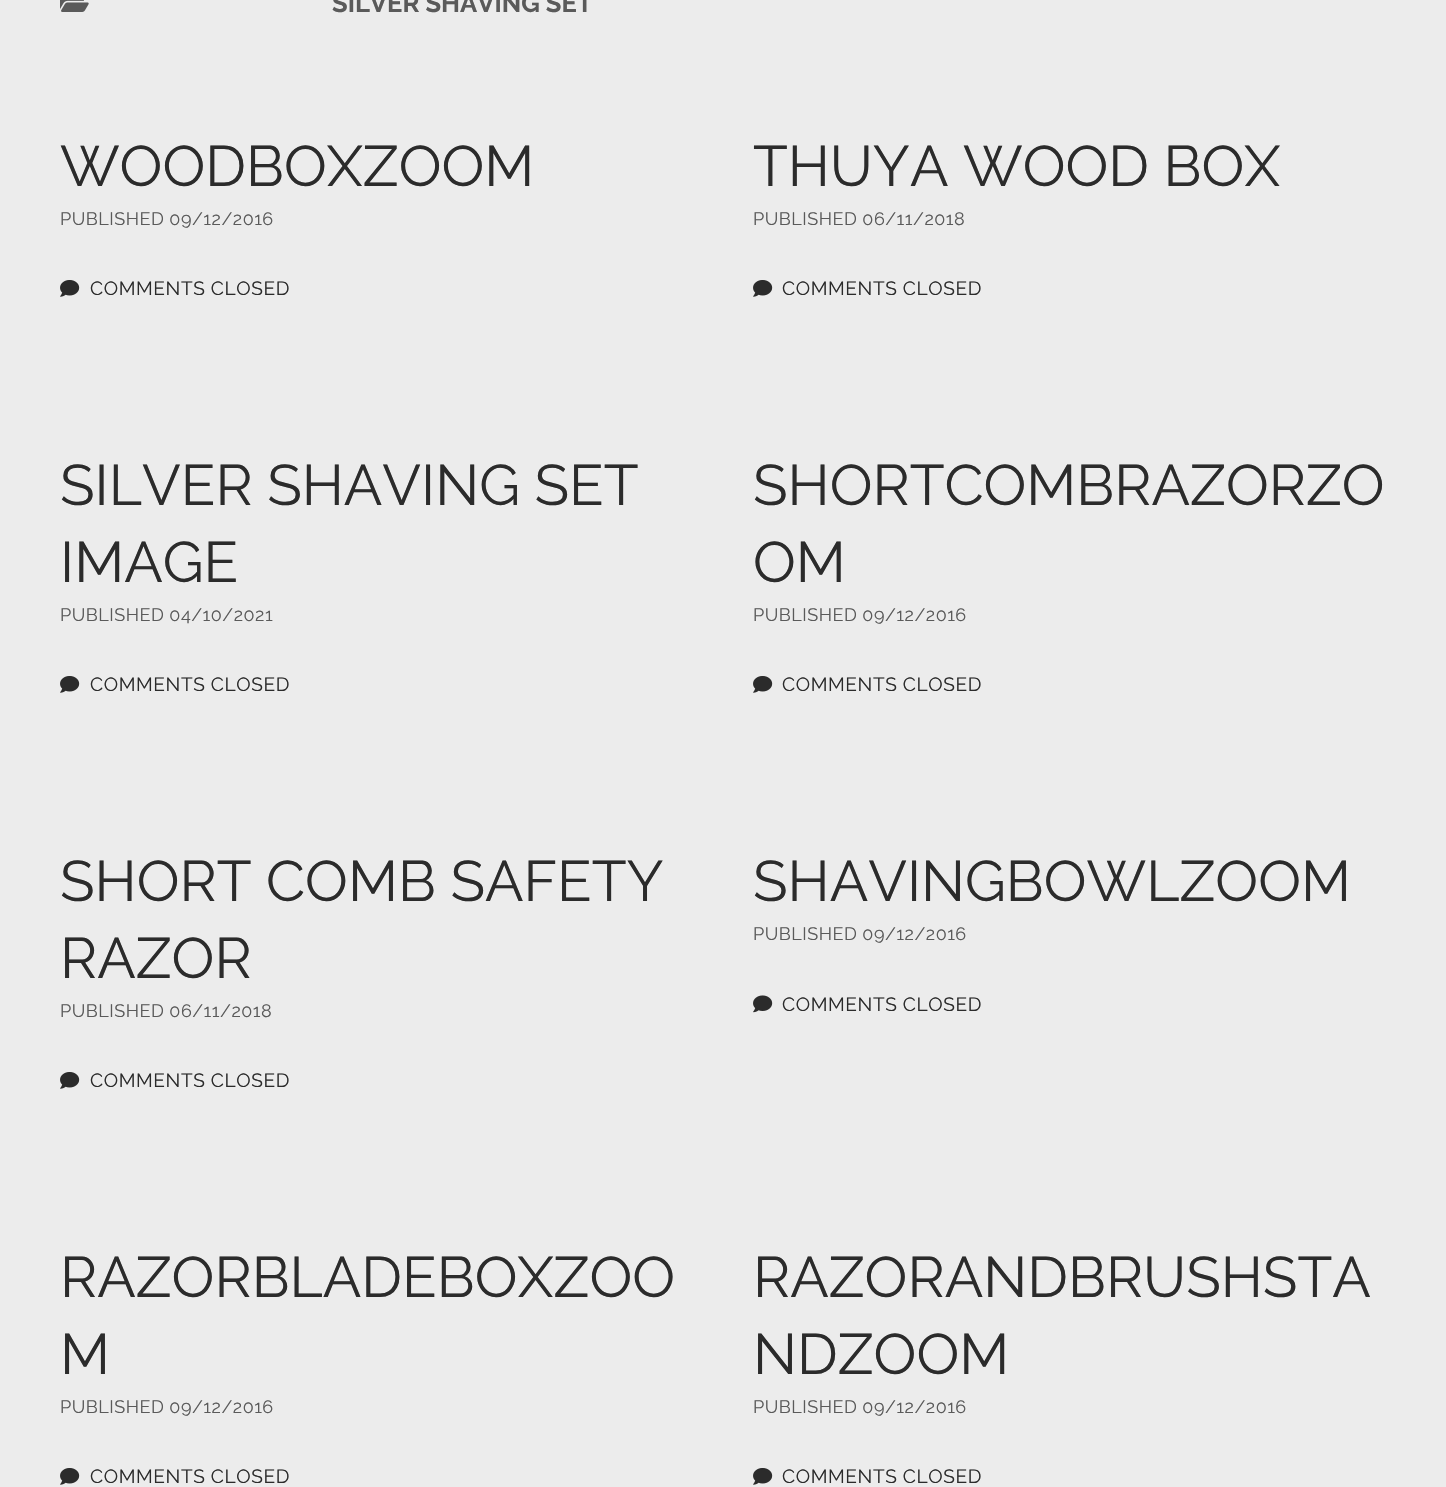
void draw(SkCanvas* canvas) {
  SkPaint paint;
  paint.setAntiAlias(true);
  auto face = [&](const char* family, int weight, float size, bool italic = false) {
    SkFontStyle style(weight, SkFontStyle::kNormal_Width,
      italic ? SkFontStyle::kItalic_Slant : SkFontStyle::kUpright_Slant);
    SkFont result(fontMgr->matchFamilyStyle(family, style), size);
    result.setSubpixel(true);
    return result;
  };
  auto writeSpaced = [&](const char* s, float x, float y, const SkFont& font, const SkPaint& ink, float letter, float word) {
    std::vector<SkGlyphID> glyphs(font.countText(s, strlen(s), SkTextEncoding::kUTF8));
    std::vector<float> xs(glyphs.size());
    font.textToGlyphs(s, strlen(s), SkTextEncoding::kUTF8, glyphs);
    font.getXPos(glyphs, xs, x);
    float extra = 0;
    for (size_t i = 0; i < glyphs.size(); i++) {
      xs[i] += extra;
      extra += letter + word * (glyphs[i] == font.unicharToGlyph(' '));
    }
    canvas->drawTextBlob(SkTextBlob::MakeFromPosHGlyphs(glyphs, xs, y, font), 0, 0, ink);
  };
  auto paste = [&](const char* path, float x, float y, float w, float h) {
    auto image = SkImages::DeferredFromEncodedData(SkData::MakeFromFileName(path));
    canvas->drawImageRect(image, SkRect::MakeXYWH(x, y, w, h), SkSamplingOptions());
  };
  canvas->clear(0xffececec);
  paste("img/1.png", 60, 0, 29, 12);
  paste("img/2.png", 60, 280, 20, 17);
  paste("img/2.png", 753, 280, 20, 17);
  paste("img/2.png", 60, 676, 20, 17);
  paste("img/2.png", 753, 676, 20, 17);
  paste("img/2.png", 60, 1072, 20, 17);
  paste("img/3.png", 753, 995, 20, 18);
  paste("img/2.png", 60, 1468, 20, 17);
  paste("img/2.png", 753, 1468, 20, 17);
  auto f0 = face("Raleway", 700, 25.5f);
  paint.setColor(0xff5a5a5a);
  canvas->drawString("SILVER SHAVING SET", 332, 12, f0, paint);
  auto f1 = face("Raleway", 400, 57);
  paint.setColor(0xff2b2b2b);
  canvas->drawString("WOODBOXZOOM", 60, 186, f1, paint);
  auto f2 = face("Raleway", 400, 18);
  paint.setColor(0xff5a5a5a);
  writeSpaced("PUBLISHED 09/12/2016", 60, 225, f2, paint, 0.5f, 0);
  auto f3 = face("Raleway", 400, 19.1f);
  paint.setColor(0xff2b2b2b);
  writeSpaced("COMMENTS CLOSED", 90, 295, f3, paint, 0.6f, 0);
  canvas->drawString("THUYA WOOD BOX", 753, 186, f1, paint);
  paint.setColor(0xff5a5a5a);
  writeSpaced("PUBLISHED 06/11/2018", 753, 225, f2, paint, 0.5f, 0);
  paint.setColor(0xff2b2b2b);
  writeSpaced("COMMENTS CLOSED", 782, 295, f3, paint, 0.6f, 0);
  canvas->drawString("SILVER SHAVING SET", 60, 505, f1, paint);
  canvas->drawString("IMAGE", 60, 582, f1, paint);
  paint.setColor(0xff5a5a5a);
  writeSpaced("PUBLISHED 04/10/2021", 60, 621, f2, paint, 0.5f, 0);
  paint.setColor(0xff2b2b2b);
  writeSpaced("COMMENTS CLOSED", 90, 691, f3, paint, 0.6f, 0);
  canvas->drawString("SHORTCOMBRAZORZO", 753, 505, f1, paint);
  canvas->drawString("OM", 753, 582, f1, paint);
  paint.setColor(0xff5a5a5a);
  writeSpaced("PUBLISHED 09/12/2016", 753, 621, f2, paint, 0.5f, 0);
  paint.setColor(0xff2b2b2b);
  writeSpaced("COMMENTS CLOSED", 782, 691, f3, paint, 0.6f, 0);
  canvas->drawString("SHORT COMB SAFETY", 60, 901, f1, paint);
  canvas->drawString("RAZOR", 60, 978, f1, paint);
  paint.setColor(0xff5a5a5a);
  writeSpaced("PUBLISHED 06/11/2018", 60, 1017, f2, paint, 0.5f, 0);
  paint.setColor(0xff2b2b2b);
  writeSpaced("COMMENTS CLOSED", 90, 1087, f3, paint, 0.6f, 0);
  canvas->drawString("SHAVINGBOWLZOOM", 753, 901, f1, paint);
  paint.setColor(0xff5a5a5a);
  writeSpaced("PUBLISHED 09/12/2016", 753, 940, f2, paint, 0.5f, 0);
  paint.setColor(0xff2b2b2b);
  writeSpaced("COMMENTS CLOSED", 782, 1011, f3, paint, 0.6f, 0);
  canvas->drawString("RAZORBLADEBOXZOO", 60, 1297, f1, paint);
  canvas->drawString("M", 60, 1374, f1, paint);
  paint.setColor(0xff5a5a5a);
  writeSpaced("PUBLISHED 09/12/2016", 60, 1413, f2, paint, 0.5f, 0);
  paint.setColor(0xff2b2b2b);
  writeSpaced("COMMENTS CLOSED", 90, 1483, f3, paint, 0.6f, 0);
  canvas->drawString("RAZORANDBRUSHSTA", 753, 1297, f1, paint);
  canvas->drawString("NDZOOM", 753, 1374, f1, paint);
  paint.setColor(0xff5a5a5a);
  writeSpaced("PUBLISHED 09/12/2016", 753, 1413, f2, paint, 0.5f, 0);
  paint.setColor(0xff2b2b2b);
  writeSpaced("COMMENTS CLOSED", 782, 1483, f3, paint, 0.6f, 0);
}
